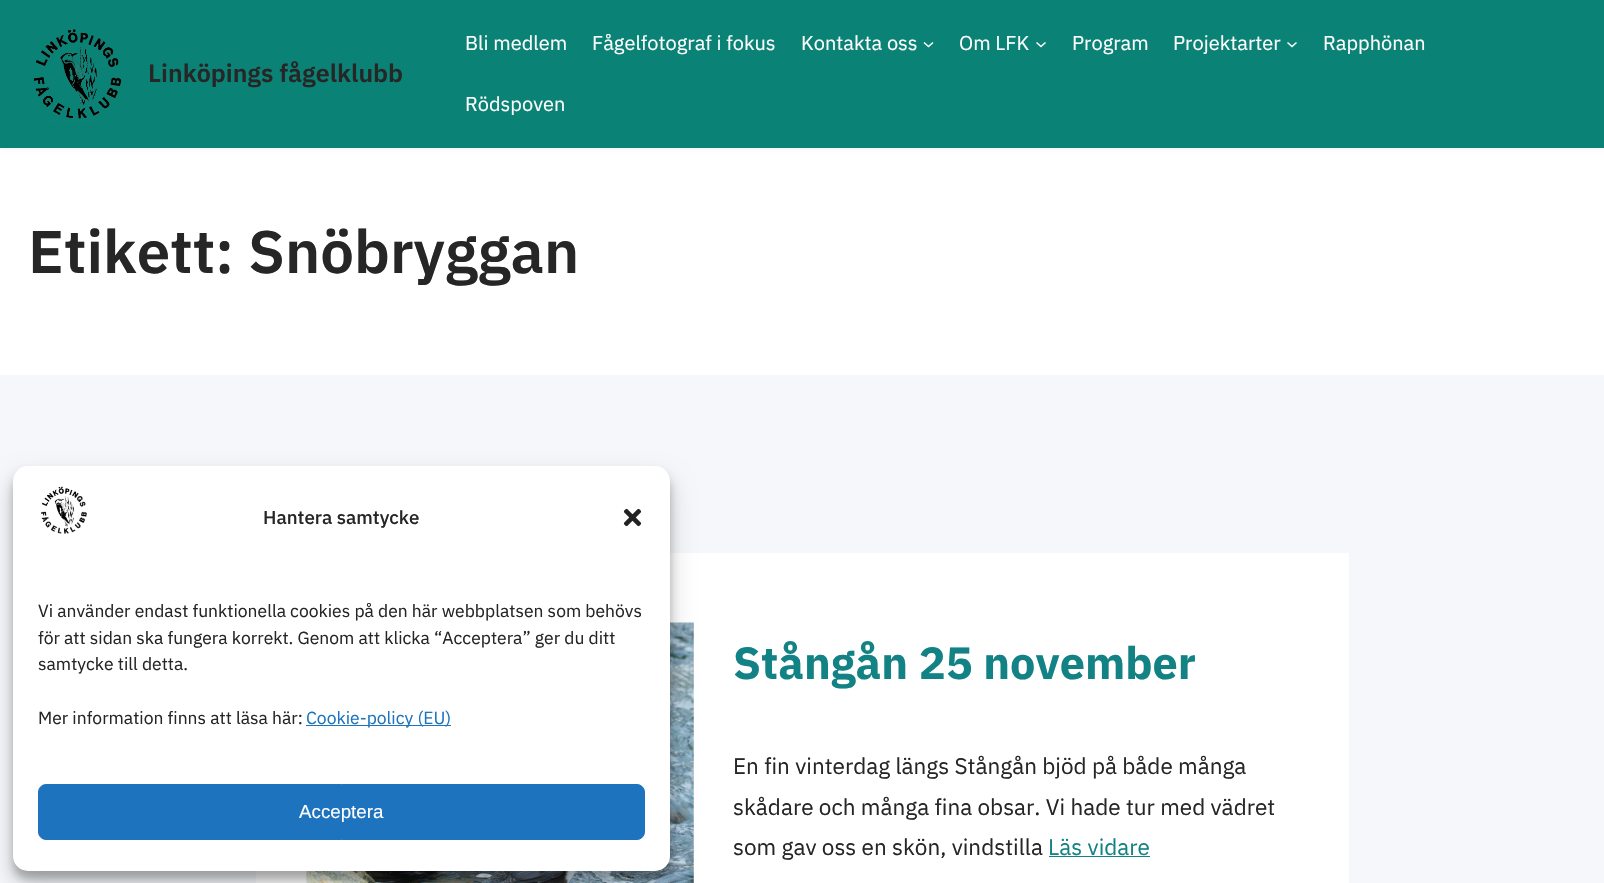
void draw(SkCanvas* canvas) {
  SkPaint paint;
  paint.setAntiAlias(true);
  auto face = [&](const char* family, int weight, float size, bool italic = false) {
    SkFontStyle style(weight, SkFontStyle::kNormal_Width,
      italic ? SkFontStyle::kItalic_Slant : SkFontStyle::kUpright_Slant);
    SkFont result(fontMgr->matchFamilyStyle(family, style), size);
    result.setSubpixel(true);
    return result;
  };
  auto paste = [&](const char* path, float x, float y, float w, float h) {
    auto image = SkImages::DeferredFromEncodedData(SkData::MakeFromFileName(path));
    canvas->drawImageRect(image, SkRect::MakeXYWH(x, y, w, h), SkSamplingOptions());
  };
  auto shape = [&](const char* data, bool evenOdd = false) {
    SkPath result = *SkParsePath::FromSVGString(data);
    if (evenOdd) result.setFillType(SkPathFillType::kEvenOdd);
    return result;
  };
  canvas->clear(0xffffffff);
  paint.setColor(0x0d000000);
  paint.setMaskFilter(SkMaskFilter::MakeBlur(kNormal_SkBlurStyle, 2));
  canvas->drawRect(SkRect::MakeXYWH(0, 1, 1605, 148), paint);
  paint.setMaskFilter(nullptr);
  paint.setColor(0xff0b8276);
  canvas->drawRect(SkRect::MakeXYWH(0, 0, 1604, 148), paint);
  paste("img/1.png", 33, 29, 89, 93);
  paint.setStroke(true);
  paint.setStrokeWidth(1.5f);
  paint.setColor(0xffffffff);
  canvas->drawPath(shape("M924 42.5L928.5 46.5L933 42.5"), paint);
  canvas->drawPath(shape("M1036.5 42.5L1041 46.5L1045.5 42.5"), paint);
  canvas->drawPath(shape("M1287.5 42.5L1292 46.5L1296.5 42.5"), paint);
  paint.setStroke(false);
  paint.setColor(0xfff5f7fa);
  canvas->drawRect(SkRect::MakeXYWH(0, 375, 1604, 508), paint);
  paint.setColor(0xffffffff);
  canvas->drawRect(SkRect::MakeXYWH(256, 553, 1093, 330), paint);
  paste("img/2.png", 306, 622, 388, 261);
  paint.setColor(0xff128284);
  canvas->drawRect(SkRect::MakeXYWH(1049, 856, 101, 1), paint);
  paint.setColor(0x3b000000);
  paint.setMaskFilter(SkMaskFilter::MakeBlur(kNormal_SkBlurStyle, 4));
  canvas->drawRoundRect(SkRect::MakeXYWH(13, 474, 657, 405), 15, 15, paint);
  paint.setMaskFilter(nullptr);
  paint.setColor(0x30000000);
  paint.setMaskFilter(SkMaskFilter::MakeBlur(kNormal_SkBlurStyle, 12.5f));
  canvas->drawRoundRect(SkRect::MakeXYWH(13, 479, 657, 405), 15, 15, paint);
  paint.setMaskFilter(nullptr);
  paint.setColor(0xffffffff);
  canvas->drawRoundRect(SkRect::MakeXYWH(13, 466, 657, 405), 15, 15, paint);
  paste("img/3.png", 40, 486, 47, 48);
  paste("img/4.png", 623, 508, 19, 19);
  paint.setColor(0xff1e73be);
  canvas->drawRect(SkRect::MakeXYWH(306, 725, 145, 1), paint);
  canvas->drawRoundRect(SkRect::MakeXYWH(38.5f, 784.5f, 606, 55), 7.5f, 7.5f, paint);
  paint.setStroke(true);
  paint.setStrokeWidth(1);
  canvas->drawRoundRect(SkRect::MakeXYWH(38.5f, 784.5f, 606, 55), 7.5f, 7.5f, paint);
  auto f0 = face("IBM Plex Sans", 600, 25);
  paint.setStroke(false);
  paint.setColor(0xff262626);
  canvas->drawString("Linköpings fågelklubb", 148, 82, f0, paint);
  auto f1 = face("IBM Plex Sans", 400, 20);
  paint.setColor(0xffffffff);
  {
    const struct { const char* s; float x, y; } items[] = {
      {"Bli medlem", 465, 50},
      {"Fågelfotograf i fokus", 592, 50},
      {"Kontakta oss", 801, 50},
      {"Om LFK", 959, 50},
      {"Program", 1072, 50},
      {"Projektarter", 1173, 50},
      {"Rapphönan", 1323, 50},
      {"Rödspoven", 465, 111},
    };
    for (auto [s, x, y] : items) {
      canvas->drawString(s, x, y, f1, paint);
    }
  }
  auto f2 = face("IBM Plex Sans", 600, 60);
  paint.setColor(0xff262626);
  canvas->drawString("Etikett: Snöbryggan", 28, 273, f2, paint);
  auto f3 = face("IBM Plex Sans", 700, 45);
  paint.setColor(0xff128284);
  canvas->drawString("Stångån 25 november", 733, 679, f3, paint);
  auto f4 = face("IBM Plex Sans", 400, 22.5f);
  paint.setColor(0xff262626);
  {
    const struct { const char* s; float x, y; } items[] = {
      {"En fin vinterdag längs Stångån bjöd på både många", 733, 774},
      {"skådare och många fina obsar. Vi hade tur med vädret", 733, 815},
      {"som gav oss en skön, vindstilla", 733, 855},
    };
    for (auto [s, x, y] : items) {
      canvas->drawString(s, x, y, f4, paint);
    }
  }
  paint.setColor(0xff128284);
  canvas->drawString("Läs vidare", 1048, 855, f4, paint);
  auto f5 = face("IBM Plex Sans", 500, 18.75f);
  paint.setColor(0xff262626);
  canvas->drawString("Hantera samtycke", 263, 524, f5, paint);
  auto f6 = face("IBM Plex Sans", 400, 17.5f);
  {
    const struct { const char* s; float x, y; } items[] = {
      {"Vi använder endast funktionella cookies på den här webbplatsen som behövs", 38, 617},
      {"för att sidan ska fungera korrekt. Genom att klicka “Acceptera” ger du ditt", 38, 644},
      {"samtycke till detta.", 38, 670},
      {"Mer information finns att läsa här:", 38, 724},
    };
    for (auto [s, x, y] : items) {
      canvas->drawString(s, x, y, f6, paint);
    }
  }
  paint.setColor(0xff1e73be);
  canvas->drawString("Cookie-policy (EU)", 306, 724, f6, paint);
  auto f7 = face("Liberation Sans", 400, 18.75f);
  paint.setColor(0xffffffff);
  canvas->drawString("Acceptera", 299, 818, f7, paint);
}
